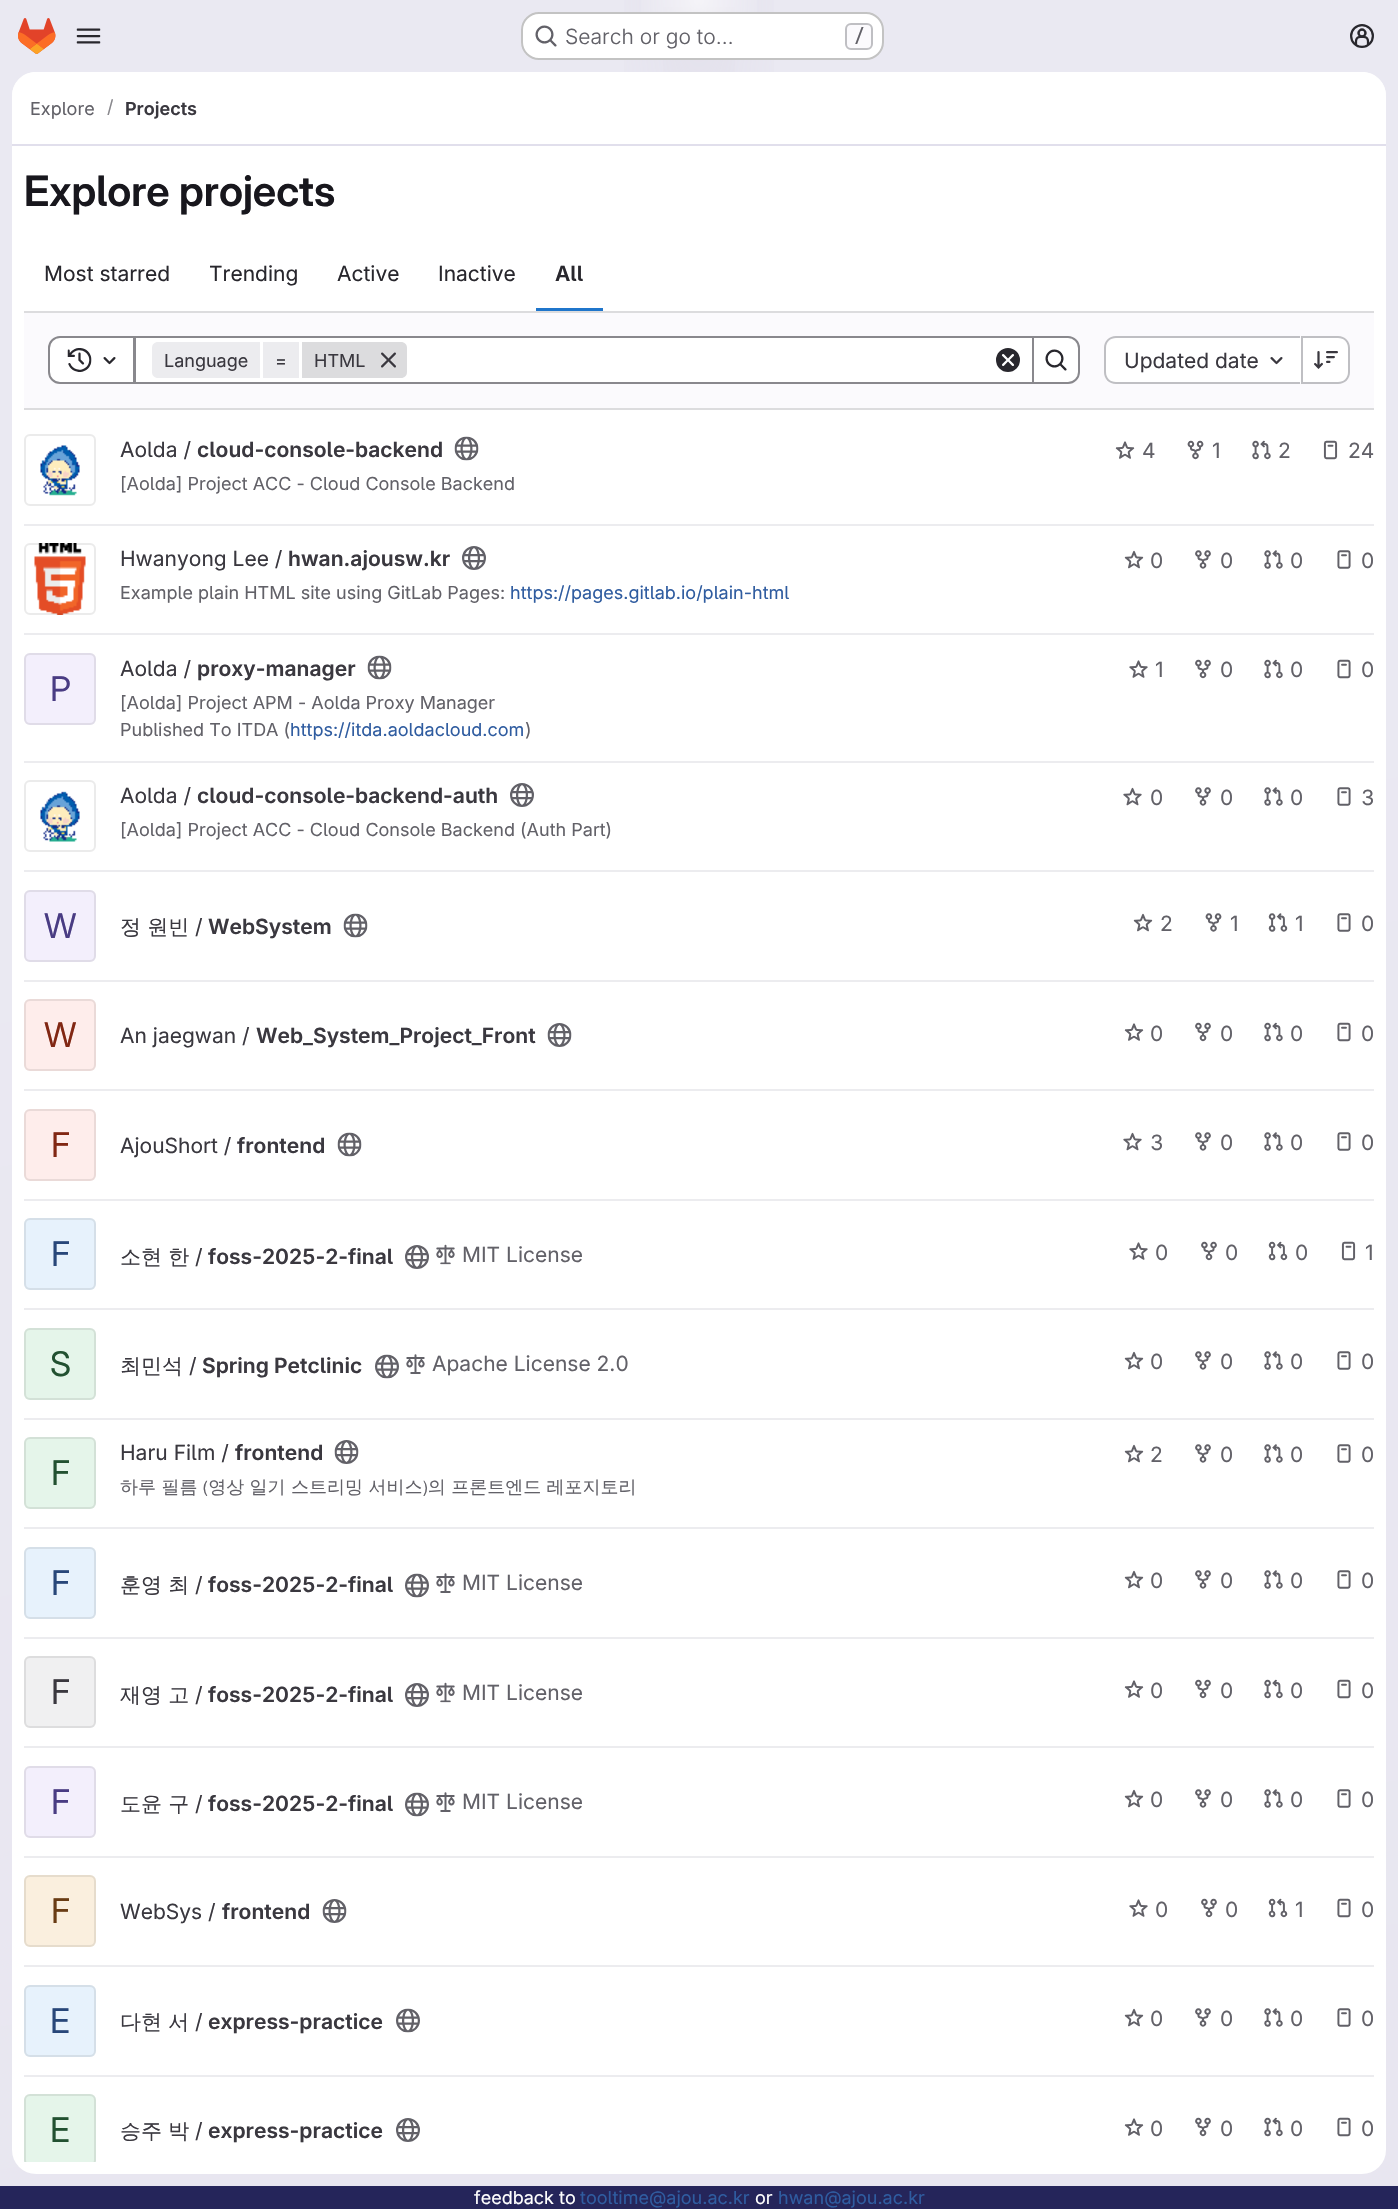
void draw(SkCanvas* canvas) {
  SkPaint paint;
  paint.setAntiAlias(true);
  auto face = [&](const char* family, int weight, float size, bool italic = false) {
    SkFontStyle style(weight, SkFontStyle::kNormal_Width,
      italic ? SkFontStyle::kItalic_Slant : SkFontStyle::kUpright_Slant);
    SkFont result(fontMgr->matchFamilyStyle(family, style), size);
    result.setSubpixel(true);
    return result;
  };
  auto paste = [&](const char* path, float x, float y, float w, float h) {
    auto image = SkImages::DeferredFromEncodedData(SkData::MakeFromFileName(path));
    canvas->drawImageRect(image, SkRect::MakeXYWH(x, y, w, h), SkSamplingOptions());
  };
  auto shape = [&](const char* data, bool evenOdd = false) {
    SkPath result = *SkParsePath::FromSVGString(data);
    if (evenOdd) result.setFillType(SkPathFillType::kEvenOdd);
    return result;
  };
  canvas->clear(0xffffffff);
  {
    const SkColor colors[] = {0xffe8e6f0, 0xffeae9f2};
    const float stops[] = {0, 0.7f};
    const SkPoint ends[] = {{909, 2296}, {489, -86}};
    paint.setShader(SkGradientShader::MakeLinear(ends, colors, stops, 2, SkTileMode::kClamp));
    paint.setAlpha(255);
  }
  canvas->drawRect(SkRect::MakeXYWH(0, 0, 1398, 2186), paint);
  {
    const SkColor colors[] = {0xffe4e2ed, 0x00e4e2ed};
    const float stops[] = {0, 0.15f};
    SkMatrix m = SkMatrix::Translate(699, 0).preScale(699, 2210);
    paint.setShader(SkGradientShader::MakeRadial({0, 0}, 1, colors, stops, 2, SkTileMode::kClamp, 0, &m));
    paint.setAlpha(255);
  }
  canvas->drawRect(SkRect::MakeXYWH(624, 0, 150, 72), paint);
  {
    const SkColor colors[] = {0xffe4e2ec, 0x00e4e2ec};
    const float stops[] = {0, 0.11f};
    SkMatrix m = SkMatrix::Translate(699, 0).preScale(699, 2210);
    paint.setShader(SkGradientShader::MakeRadial({0, 0}, 1, colors, stops, 2, SkTileMode::kClamp, 0, &m));
    paint.setAlpha(255);
  }
  canvas->drawRect(SkRect::MakeXYWH(663, 7, 72, 65), paint);
  {
    const SkColor colors[] = {0x99ffffff, 0x00ffffff};
    const float stops[] = {0, 0.03f};
    paint.setShader(SkGradientShader::MakeRadial({699, 0}, 2317, colors, stops, 2, SkTileMode::kClamp));
    paint.setAlpha(255);
  }
  canvas->drawRect(SkRect::MakeXYWH(641, 0, 116, 12), paint);
  paste("img/1.png", 18, 18, 38, 36);
  paste("img/2.png", 76, 28, 25, 16);
  paint.setShader(nullptr);
  paint.setColor(0xffffffff);
  canvas->drawRoundRect(SkRect::MakeXYWH(521, 12, 363, 48), 18, 18, paint);
  paint.setStroke(true);
  paint.setStrokeWidth(2);
  paint.setColor(0x3d050506);
  canvas->drawRoundRect(SkRect::MakeXYWH(522, 13, 361, 46), 17, 17, paint);
  paste("img/3.png", 535, 25, 22, 22);
  paint.setStroke(false);
  paint.setColor(0xfffbfafd);
  canvas->drawRoundRect(SkRect::MakeXYWH(846, 24, 26, 25), 5, 5, paint);
  paint.setStroke(true);
  paint.setColor(0xffbfbfc3);
  canvas->drawRoundRect(SkRect::MakeXYWH(846, 24, 26, 25), 5, 5, paint);
  paste("img/4.png", 1350, 24, 24, 24);
  paint.setStroke(false);
  paint.setColor(0xffffffff);
  canvas->drawRoundRect(SkRect::MakeXYWH(12, 72, 1374, 2102), 24, 24, paint);
  canvas->drawPath(shape("M36 72H1362C1375.5 72 1386 82.5 1386 96V146H12V96C12 82.5 22.5 72 36 72Z"), paint);
  {
    const struct { float x, y, w, h; SkColor color; } items[] = {
      {12, 144, 1374, 2, 0xffe1dfec},
      {536, 308, 67, 3, 0xff1f75cb},
      {24, 313, 1350, 95, 0xfffbfafd},
      {24, 311, 1350, 2, 0xffdcdcde},
      {24, 408, 1350, 2, 0xffdcdcde},
    };
    for (auto [x, y, w, h, color] : items) {
      paint.setColor(color);
      canvas->drawRect(SkRect::MakeXYWH(x, y, w, h), paint);
    }
  }
  paint.setColor(0xffffffff);
  canvas->drawRect(SkRect::MakeXYWH(135, 337, 898, 46), paint);
  paint.setStroke(true);
  paint.setColor(0xff89888d);
  canvas->drawRect(SkRect::MakeXYWH(135, 337, 898, 46), paint);
  paint.setStroke(false);
  paint.setColor(0xffffffff);
  canvas->drawPath(shape("M60 337H134V383H60C54 383 49 378 49 372V348C49 342 54 337 60 337Z"), paint);
  paint.setStroke(true);
  paint.setColor(0xff89888d);
  canvas->drawPath(shape("M60 337H134V383H60C54 383 49 378 49 372V348C49 342 54 337 60 337Z"), paint);
  paste("img/5.png", 67, 348, 25, 24);
  paste("img/6.png", 103, 357, 13, 8);
  paint.setStroke(false);
  paint.setColor(0xffececef);
  canvas->drawPath(shape("M158 342H260V378H158C154.5 378 152 375.5 152 372V348C152 344.5 154.5 342 158 342Z"), paint);
  canvas->drawRect(SkRect::MakeXYWH(263, 342, 36, 36), paint);
  paint.setColor(0xffdcdcde);
  canvas->drawPath(shape("M302 342H401C404.5 342 407 344.5 407 348V372C407 375.5 404.5 378 401 378H302Z"), paint);
  paste("img/7.png", 381, 352, 15, 16);
  paste("img/8.png", 996, 348, 24, 24);
  paint.setColor(0xffffffff);
  canvas->drawPath(shape("M1033 337H1068C1074 337 1079 342 1079 348V372C1079 378 1074 383 1068 383H1033Z"), paint);
  paint.setStroke(true);
  paint.setColor(0xff89888d);
  canvas->drawPath(shape("M1033 337H1068C1074 337 1079 342 1079 348V372C1079 378 1074 383 1068 383H1033Z"), paint);
  paste("img/9.png", 1045, 349, 22, 22);
  paint.setStroke(false);
  paint.setColor(0xffffffff);
  canvas->drawPath(shape("M1117 338H1301V383H1117C1111 383 1106 378 1106 372V349C1106 343 1111 338 1117 338Z"), paint);
  paint.setColor(0xffbfbfc3);
  canvas->drawPath(shape("M1116 336H1300V384H1116C1109 384 1104 379 1104 372V348C1104 341 1109 336 1116 336ZM1116 338H1300V382H1116C1110 382 1106 378 1106 372V348C1106 342 1110 338 1116 338Z", true), paint);
  paste("img/10.png", 1270, 357, 13, 8);
  paint.setColor(0xffffffff);
  canvas->drawPath(shape("M1302 338H1338C1344 338 1349 343 1349 349V372C1349 378 1344 383 1338 383H1302Z"), paint);
  paint.setColor(0xffbfbfc3);
  canvas->drawPath(shape("M1302 336H1338C1345 336 1350 341 1350 348V372C1350 379 1345 384 1338 384H1302ZM1302 338H1338C1344 338 1348 342 1348 348V372C1348 378 1344 382 1338 382H1302Z", true), paint);
  canvas->drawRect(SkRect::MakeXYWH(1301, 336, 2, 48), paint);
  paste("img/11.png", 1314, 351, 24, 18);
  paint.setColor(0xffececef);
  canvas->drawRect(SkRect::MakeXYWH(24, 524, 1350, 2), paint);
  paste("img/12.png", 40, 445, 40, 51);
  paint.setStroke(true);
  paint.setColor(0xffebebeb);
  canvas->drawRoundRect(SkRect::MakeXYWH(25, 435, 70, 70), 5, 5, paint);
  paste("img/13.png", 454, 436, 25, 25);
  paste("img/14.png", 1115, 441, 20, 18);
  paste("img/15.png", 1187, 440, 17, 20);
  paste("img/16.png", 1252, 440, 19, 20);
  paste("img/17.png", 1323, 440, 15, 20);
  paint.setStroke(false);
  paint.setColor(0xffececef);
  canvas->drawRect(SkRect::MakeXYWH(24, 633, 1350, 2), paint);
  paste("img/18.png", 34, 543, 52, 72);
  paint.setStroke(true);
  paint.setColor(0x14050506);
  canvas->drawRoundRect(SkRect::MakeXYWH(25, 544, 70, 70), 5, 5, paint);
  paste("img/19.png", 462, 546, 24, 24);
  paste("img/20.png", 1124, 550, 20, 19);
  paste("img/21.png", 1195, 550, 16, 19);
  paste("img/22.png", 1264, 550, 19, 19);
  paste("img/23.png", 1337, 550, 14, 19);
  paint.setStroke(false);
  paint.setColor(0xffececef);
  canvas->drawRect(SkRect::MakeXYWH(24, 761, 1350, 2), paint);
  paste("img/13.png", 367, 655, 25, 25);
  paste("img/24.png", 1129, 660, 19, 18);
  paste("img/25.png", 1195, 659, 16, 20);
  paste("img/26.png", 1264, 659, 19, 20);
  paste("img/27.png", 1337, 659, 14, 20);
  paint.setColor(0xfff3effc);
  canvas->drawRoundRect(SkRect::MakeXYWH(24, 653, 72, 72), 6, 6, paint);
  paint.setStroke(true);
  paint.setColor(0x14050506);
  canvas->drawRoundRect(SkRect::MakeXYWH(25, 654, 70, 70), 5, 5, paint);
  paint.setStroke(false);
  paint.setColor(0xffececef);
  canvas->drawRect(SkRect::MakeXYWH(24, 870, 1350, 2), paint);
  paste("img/28.png", 40, 791, 40, 51);
  paint.setStroke(true);
  paint.setColor(0xffebebeb);
  canvas->drawRoundRect(SkRect::MakeXYWH(25, 781, 70, 70), 5, 5, paint);
  paste("img/19.png", 510, 783, 24, 24);
  paste("img/29.png", 1123, 787, 19, 19);
  paste("img/21.png", 1195, 787, 16, 19);
  paste("img/22.png", 1264, 787, 19, 19);
  paste("img/23.png", 1337, 787, 14, 19);
  paint.setStroke(false);
  paint.setColor(0xffececef);
  canvas->drawRect(SkRect::MakeXYWH(24, 980, 1350, 2), paint);
  paint.setColor(0xfff3effc);
  canvas->drawRoundRect(SkRect::MakeXYWH(24, 890, 72, 72), 6, 6, paint);
  paint.setStroke(true);
  paint.setColor(0x14050506);
  canvas->drawRoundRect(SkRect::MakeXYWH(25, 891, 70, 70), 5, 5, paint);
  paste("img/13.png", 343, 913, 25, 25);
  paste("img/20.png", 1133, 913, 20, 19);
  paste("img/30.png", 1205, 913, 17, 19);
  paste("img/31.png", 1268, 913, 20, 19);
  paste("img/23.png", 1337, 913, 14, 19);
  paint.setStroke(false);
  paint.setColor(0xffececef);
  canvas->drawRect(SkRect::MakeXYWH(24, 1089, 1350, 2), paint);
  paint.setColor(0xfffeedeb);
  canvas->drawRoundRect(SkRect::MakeXYWH(24, 999, 72, 72), 6, 6, paint);
  paint.setStroke(true);
  paint.setColor(0x14050506);
  canvas->drawRoundRect(SkRect::MakeXYWH(25, 1000, 70, 70), 5, 5, paint);
  paste("img/32.png", 547, 1023, 25, 24);
  paste("img/14.png", 1124, 1023, 20, 18);
  paste("img/25.png", 1195, 1022, 16, 20);
  paste("img/26.png", 1264, 1022, 19, 20);
  paste("img/27.png", 1337, 1022, 14, 20);
  paint.setStroke(false);
  paint.setColor(0xffececef);
  canvas->drawRect(SkRect::MakeXYWH(24, 1199, 1350, 2), paint);
  paint.setColor(0xfffeedeb);
  canvas->drawRoundRect(SkRect::MakeXYWH(24, 1109, 72, 72), 6, 6, paint);
  paint.setStroke(true);
  paint.setColor(0x14050506);
  canvas->drawRoundRect(SkRect::MakeXYWH(25, 1110, 70, 70), 5, 5, paint);
  paste("img/13.png", 337, 1132, 25, 25);
  paste("img/29.png", 1123, 1132, 19, 19);
  paste("img/21.png", 1195, 1132, 16, 19);
  paste("img/22.png", 1264, 1132, 19, 19);
  paste("img/23.png", 1337, 1132, 14, 19);
  paint.setStroke(false);
  paint.setColor(0xffececef);
  canvas->drawRect(SkRect::MakeXYWH(24, 1308, 1350, 2), paint);
  paint.setColor(0xffe7f2fc);
  canvas->drawRoundRect(SkRect::MakeXYWH(24, 1218, 72, 72), 6, 6, paint);
  paint.setStroke(true);
  paint.setColor(0x14050506);
  canvas->drawRoundRect(SkRect::MakeXYWH(25, 1219, 70, 70), 5, 5, paint);
  paste("img/33.png", 405, 1245, 24, 24);
  paste("img/34.png", 436, 1244, 19, 21);
  paste("img/24.png", 1129, 1242, 19, 18);
  paste("img/25.png", 1201, 1241, 16, 20);
  paste("img/35.png", 1268, 1241, 20, 20);
  paste("img/17.png", 1341, 1241, 15, 20);
  paint.setStroke(false);
  paint.setColor(0xffececef);
  canvas->drawRect(SkRect::MakeXYWH(24, 1418, 1350, 2), paint);
  paint.setColor(0xffe5f5ea);
  canvas->drawRoundRect(SkRect::MakeXYWH(24, 1328, 72, 72), 6, 6, paint);
  paint.setStroke(true);
  paint.setColor(0x14050506);
  canvas->drawRoundRect(SkRect::MakeXYWH(25, 1329, 70, 70), 5, 5, paint);
  paste("img/36.png", 375, 1354, 24, 25);
  paste("img/37.png", 406, 1354, 19, 20);
  paste("img/20.png", 1124, 1351, 20, 19);
  paste("img/21.png", 1195, 1351, 16, 19);
  paste("img/22.png", 1264, 1351, 19, 19);
  paste("img/23.png", 1337, 1351, 14, 19);
  paint.setStroke(false);
  paint.setColor(0xffececef);
  canvas->drawRect(SkRect::MakeXYWH(24, 1527, 1350, 2), paint);
  paste("img/38.png", 334, 1440, 25, 24);
  paste("img/20.png", 1124, 1444, 20, 19);
  paste("img/21.png", 1195, 1444, 16, 19);
  paste("img/22.png", 1264, 1444, 19, 19);
  paste("img/23.png", 1337, 1444, 14, 19);
  paint.setColor(0xffe5f5ea);
  canvas->drawRoundRect(SkRect::MakeXYWH(24, 1437, 72, 72), 6, 6, paint);
  paint.setStroke(true);
  paint.setColor(0x14050506);
  canvas->drawRoundRect(SkRect::MakeXYWH(25, 1438, 70, 70), 5, 5, paint);
  paint.setStroke(false);
  paint.setColor(0xffececef);
  canvas->drawRect(SkRect::MakeXYWH(24, 1637, 1350, 2), paint);
  paint.setColor(0xffe7f2fc);
  canvas->drawRoundRect(SkRect::MakeXYWH(24, 1547, 72, 72), 6, 6, paint);
  paint.setStroke(true);
  paint.setColor(0x14050506);
  canvas->drawRoundRect(SkRect::MakeXYWH(25, 1548, 70, 70), 5, 5, paint);
  paste("img/39.png", 405, 1573, 24, 25);
  paste("img/37.png", 436, 1573, 19, 20);
  paste("img/20.png", 1124, 1570, 20, 19);
  paste("img/21.png", 1195, 1570, 16, 19);
  paste("img/22.png", 1264, 1570, 19, 19);
  paste("img/23.png", 1337, 1570, 14, 19);
  paint.setStroke(false);
  paint.setColor(0xffececef);
  canvas->drawRect(SkRect::MakeXYWH(24, 1746, 1350, 2), paint);
  paint.setColor(0xfff0f0f1);
  canvas->drawRoundRect(SkRect::MakeXYWH(24, 1656, 72, 72), 6, 6, paint);
  paint.setStroke(true);
  paint.setColor(0x14050506);
  canvas->drawRoundRect(SkRect::MakeXYWH(25, 1657, 70, 70), 5, 5, paint);
  paste("img/33.png", 405, 1683, 24, 24);
  paste("img/34.png", 436, 1682, 19, 21);
  paste("img/14.png", 1124, 1680, 20, 18);
  paste("img/25.png", 1195, 1679, 16, 20);
  paste("img/26.png", 1264, 1679, 19, 20);
  paste("img/27.png", 1337, 1679, 14, 20);
  paint.setStroke(false);
  paint.setColor(0xffececef);
  canvas->drawRect(SkRect::MakeXYWH(24, 1856, 1350, 2), paint);
  paint.setColor(0xfff3effc);
  canvas->drawRoundRect(SkRect::MakeXYWH(24, 1766, 72, 72), 6, 6, paint);
  paint.setStroke(true);
  paint.setColor(0x14050506);
  canvas->drawRoundRect(SkRect::MakeXYWH(25, 1767, 70, 70), 5, 5, paint);
  paste("img/39.png", 405, 1792, 24, 25);
  paste("img/37.png", 436, 1792, 19, 20);
  paste("img/20.png", 1124, 1789, 20, 19);
  paste("img/21.png", 1195, 1789, 16, 19);
  paste("img/22.png", 1264, 1789, 19, 19);
  paste("img/23.png", 1337, 1789, 14, 19);
  paint.setStroke(false);
  paint.setColor(0xffececef);
  canvas->drawRect(SkRect::MakeXYWH(24, 1965, 1350, 2), paint);
  paint.setColor(0xfffaefde);
  canvas->drawRoundRect(SkRect::MakeXYWH(24, 1875, 72, 72), 6, 6, paint);
  paint.setStroke(true);
  paint.setColor(0x14050506);
  canvas->drawRoundRect(SkRect::MakeXYWH(25, 1876, 70, 70), 5, 5, paint);
  paste("img/38.png", 322, 1899, 25, 24);
  paste("img/24.png", 1129, 1899, 19, 18);
  paste("img/25.png", 1201, 1898, 16, 20);
  paste("img/35.png", 1268, 1898, 20, 20);
  paste("img/27.png", 1337, 1898, 14, 20);
  paint.setStroke(false);
  paint.setColor(0xffececef);
  canvas->drawRect(SkRect::MakeXYWH(24, 2075, 1350, 2), paint);
  paint.setColor(0xffe7f2fc);
  canvas->drawRoundRect(SkRect::MakeXYWH(24, 1985, 72, 72), 6, 6, paint);
  paint.setStroke(true);
  paint.setColor(0x14050506);
  canvas->drawRoundRect(SkRect::MakeXYWH(25, 1986, 70, 70), 5, 5, paint);
  paste("img/36.png", 396, 2008, 24, 25);
  paste("img/20.png", 1124, 2008, 20, 19);
  paste("img/21.png", 1195, 2008, 16, 19);
  paste("img/22.png", 1264, 2008, 19, 19);
  paste("img/23.png", 1337, 2008, 14, 19);
  canvas->save();
  canvas->clipRect(SkRect::MakeXYWH(12, 146, 1374, 2016));
  paint.setStroke(false);
  paint.setColor(0xffe5f5ea);
  canvas->drawRoundRect(SkRect::MakeXYWH(24, 2094, 72, 72), 6, 6, paint);
  paint.setStroke(true);
  paint.setColor(0x14050506);
  canvas->drawRoundRect(SkRect::MakeXYWH(25, 2095, 70, 70), 5, 5, paint);
  canvas->restore();
  paste("img/40.png", 396, 2118, 24, 24);
  paste("img/14.png", 1124, 2118, 20, 18);
  paste("img/25.png", 1195, 2117, 16, 20);
  paste("img/26.png", 1264, 2117, 19, 20);
  paste("img/27.png", 1337, 2117, 14, 20);
  paint.setStroke(false);
  paint.setColor(0xff25255a);
  canvas->drawRect(SkRect::MakeXYWH(0, 2186, 1398, 23), paint);
  auto f0 = face("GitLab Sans", 300, 21);
  paint.setColor(0xff626168);
  canvas->drawString("Search or go to…", 565, 44, f0, paint);
  auto f1 = face("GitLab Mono", 500, 18);
  canvas->drawString("/", 854, 42, f1, paint);
  auto f2 = face("GitLab Sans", 400, 18);
  canvas->drawString("Explore", 30, 115, f2, paint);
  paint.setColor(0xff89888d);
  canvas->drawString("/", 107, 113, f2, paint);
  auto f3 = face("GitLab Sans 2", 600, 18);
  paint.setColor(0xff3a383f);
  canvas->drawString("Projects", 125, 115, f3, paint);
  auto f4 = face("GitLab Sans", 600, 42);
  paint.setColor(0xff18171d);
  canvas->drawString("Explore projects", 24, 206, f4, paint);
  auto f5 = face("GitLab Sans", 400, 21);
  paint.setColor(0xff28272d);
  {
    const struct { const char* s; float x, y; } items[] = {
      {"Most starred", 44, 281},
      {"Trending", 209, 281},
      {"Active", 337, 281},
      {"Inactive", 438, 281},
    };
    for (auto [s, x, y] : items) {
      canvas->drawString(s, x, y, f5, paint);
    }
  }
  auto f6 = face("GitLab Sans 2", 600, 21);
  canvas->drawString("All", 555, 281, f6, paint);
  paint.setColor(0xff3a383f);
  {
    const struct { const char* s; float x, y; } items[] = {
      {"Language", 164, 367},
      {"=", 275, 367},
      {"HTML", 314, 367},
    };
    for (auto [s, x, y] : items) {
      canvas->drawString(s, x, y, f2, paint);
    }
  }
  canvas->drawString("Updated date", 1124, 368, f5, paint);
  canvas->drawString("Aolda /", 120, 457, f5, paint);
  canvas->drawString("cloud-console-backend", 197, 457, f6, paint);
  paint.setColor(0xff626168);
  canvas->drawString("[Aolda] Project ACC - Cloud Console Backend", 120, 490, f2, paint);
  {
    const struct { const char* s; float x, y; } items[] = {
      {"4", 1142, 458},
      {"1", 1212, 458},
      {"2", 1278, 458},
      {"24", 1348, 458},
    };
    for (auto [s, x, y] : items) {
      canvas->drawString(s, x, y, f5, paint);
    }
  }
  paint.setColor(0xff3a383f);
  canvas->drawString("Hwanyong Lee /", 120, 566, f5, paint);
  canvas->drawString("hwan.ajousw.kr", 288, 566, f6, paint);
  paint.setColor(0xff626168);
  canvas->drawString("Example plain HTML site using GitLab Pages:", 120, 599, f2, paint);
  paint.setColor(0xff2f5ca0);
  canvas->drawString("https://pages.gitlab.io/plain-html", 510, 599, f2, paint);
  paint.setColor(0xff626168);
  {
    const struct { const char* s; float x, y; } items[] = {
      {"0", 1150, 568},
      {"0", 1220, 568},
      {"0", 1290, 568},
      {"0", 1361, 568},
    };
    for (auto [s, x, y] : items) {
      canvas->drawString(s, x, y, f5, paint);
    }
  }
  paint.setColor(0xff3a383f);
  canvas->drawString("Aolda /", 120, 676, f5, paint);
  canvas->drawString("proxy-manager", 197, 676, f6, paint);
  paint.setColor(0xff626168);
  canvas->drawString("[Aolda] Project APM - Aolda Proxy Manager", 120, 709, f2, paint);
  canvas->drawString("Published To ITDA (", 120, 736, f2, paint);
  paint.setColor(0xff2f5ca0);
  canvas->drawString("https://itda.aoldacloud.com", 290, 736, f2, paint);
  paint.setColor(0xff626168);
  canvas->drawString(")", 525, 736, f2, paint);
  {
    const struct { const char* s; float x, y; } items[] = {
      {"1", 1155, 677},
      {"0", 1220, 677},
      {"0", 1290, 677},
      {"0", 1361, 677},
    };
    for (auto [s, x, y] : items) {
      canvas->drawString(s, x, y, f5, paint);
    }
  }
  auto f7 = face("GitLab Sans 2", 400, 34);
  paint.setColor(0xff493c83);
  canvas->drawString("P", 50, 701, f7, paint);
  paint.setColor(0xff3a383f);
  canvas->drawString("Aolda /", 120, 803, f5, paint);
  canvas->drawString("cloud-console-backend-auth", 197, 803, f6, paint);
  paint.setColor(0xff626168);
  canvas->drawString("[Aolda] Project ACC - Cloud Console Backend (Auth Part)", 120, 836, f2, paint);
  {
    const struct { const char* s; float x, y; } items[] = {
      {"0", 1150, 805},
      {"0", 1220, 805},
      {"0", 1290, 805},
      {"3", 1361, 805},
    };
    for (auto [s, x, y] : items) {
      canvas->drawString(s, x, y, f5, paint);
    }
  }
  paint.setColor(0xff493c83);
  canvas->drawString("W", 44, 938, f7, paint);
  auto f8 = face("WenQuanYi Zen Hei", 500, 21);
  paint.setColor(0xff3a383f);
  canvas->drawString("정 원빈", 120, 934, f8, paint);
  canvas->drawString("/", 195, 934, f5, paint);
  canvas->drawString("WebSystem", 208, 934, f6, paint);
  paint.setColor(0xff626168);
  {
    const struct { const char* s; float x, y; } items[] = {
      {"2", 1160, 931},
      {"1", 1230, 931},
      {"1", 1295, 931},
      {"0", 1361, 931},
    };
    for (auto [s, x, y] : items) {
      canvas->drawString(s, x, y, f5, paint);
    }
  }
  paint.setColor(0xff812713);
  canvas->drawString("W", 44, 1047, f7, paint);
  paint.setColor(0xff3a383f);
  canvas->drawString("An jaegwan /", 120, 1043, f5, paint);
  canvas->drawString("Web_System_Project_Front", 256, 1043, f6, paint);
  paint.setColor(0xff626168);
  {
    const struct { const char* s; float x, y; } items[] = {
      {"0", 1150, 1041},
      {"0", 1220, 1041},
      {"0", 1290, 1041},
      {"0", 1361, 1041},
    };
    for (auto [s, x, y] : items) {
      canvas->drawString(s, x, y, f5, paint);
    }
  }
  paint.setColor(0xff812713);
  canvas->drawString("F", 51, 1157, f7, paint);
  paint.setColor(0xff3a383f);
  canvas->drawString("AjouShort /", 120, 1153, f5, paint);
  canvas->drawString("frontend", 237, 1153, f6, paint);
  paint.setColor(0xff626168);
  {
    const struct { const char* s; float x, y; } items[] = {
      {"3", 1150, 1150},
      {"0", 1220, 1150},
      {"0", 1290, 1150},
      {"0", 1361, 1150},
    };
    for (auto [s, x, y] : items) {
      canvas->drawString(s, x, y, f5, paint);
    }
  }
  paint.setColor(0xff284779);
  canvas->drawString("F", 51, 1266, f7, paint);
  paint.setColor(0xff3a383f);
  canvas->drawString("소현 한", 120, 1264, f8, paint);
  canvas->drawString("/", 195, 1264, f5, paint);
  canvas->drawString("foss-2025-2-final", 208, 1264, f6, paint);
  paint.setColor(0xff626168);
  {
    const struct { const char* s; float x, y; } items[] = {
      {"MIT License", 462, 1262},
      {"0", 1155, 1260},
      {"0", 1225, 1260},
      {"0", 1295, 1260},
      {"1", 1365, 1260},
    };
    for (auto [s, x, y] : items) {
      canvas->drawString(s, x, y, f5, paint);
    }
  }
  paint.setColor(0xff225131);
  canvas->drawString("S", 50, 1376, f7, paint);
  paint.setColor(0xff3a383f);
  canvas->drawString("최민석", 120, 1373, f8, paint);
  canvas->drawString("/", 189, 1373, f5, paint);
  canvas->drawString("Spring Petclinic", 202, 1373, f6, paint);
  paint.setColor(0xff626168);
  {
    const struct { const char* s; float x, y; } items[] = {
      {"Apache License 2.0", 432, 1371},
      {"0", 1150, 1369},
      {"0", 1220, 1369},
      {"0", 1290, 1369},
      {"0", 1361, 1369},
    };
    for (auto [s, x, y] : items) {
      canvas->drawString(s, x, y, f5, paint);
    }
  }
  paint.setColor(0xff3a383f);
  canvas->drawString("Haru Film /", 120, 1460, f5, paint);
  canvas->drawString("frontend", 235, 1460, f6, paint);
  auto f9 = face("WenQuanYi Zen Hei", 500, 18);
  paint.setColor(0xff626168);
  canvas->drawString("하루 필름 (영상 일기 스트리밍 서비스)의 프론트엔드 레포지토리", 120, 1493, f9, paint);
  {
    const struct { const char* s; float x, y; } items[] = {
      {"2", 1150, 1462},
      {"0", 1220, 1462},
      {"0", 1290, 1462},
      {"0", 1361, 1462},
    };
    for (auto [s, x, y] : items) {
      canvas->drawString(s, x, y, f5, paint);
    }
  }
  paint.setColor(0xff225131);
  canvas->drawString("F", 51, 1485, f7, paint);
  paint.setColor(0xff284779);
  canvas->drawString("F", 51, 1595, f7, paint);
  paint.setColor(0xff3a383f);
  canvas->drawString("훈영 최", 120, 1592, f8, paint);
  canvas->drawString("/", 195, 1592, f5, paint);
  canvas->drawString("foss-2025-2-final", 208, 1592, f6, paint);
  paint.setColor(0xff626168);
  {
    const struct { const char* s; float x, y; } items[] = {
      {"MIT License", 462, 1590},
      {"0", 1150, 1588},
      {"0", 1220, 1588},
      {"0", 1290, 1588},
      {"0", 1361, 1588},
    };
    for (auto [s, x, y] : items) {
      canvas->drawString(s, x, y, f5, paint);
    }
  }
  paint.setColor(0xff3a383f);
  canvas->drawString("F", 51, 1704, f7, paint);
  canvas->drawString("재영 고", 120, 1702, f8, paint);
  canvas->drawString("/", 195, 1702, f5, paint);
  canvas->drawString("foss-2025-2-final", 208, 1702, f6, paint);
  paint.setColor(0xff626168);
  {
    const struct { const char* s; float x, y; } items[] = {
      {"MIT License", 462, 1700},
      {"0", 1150, 1698},
      {"0", 1220, 1698},
      {"0", 1290, 1698},
      {"0", 1361, 1698},
    };
    for (auto [s, x, y] : items) {
      canvas->drawString(s, x, y, f5, paint);
    }
  }
  paint.setColor(0xff493c83);
  canvas->drawString("F", 51, 1814, f7, paint);
  paint.setColor(0xff3a383f);
  canvas->drawString("도윤 구", 120, 1811, f8, paint);
  canvas->drawString("/", 195, 1811, f5, paint);
  canvas->drawString("foss-2025-2-final", 208, 1811, f6, paint);
  paint.setColor(0xff626168);
  {
    const struct { const char* s; float x, y; } items[] = {
      {"MIT License", 462, 1809},
      {"0", 1150, 1807},
      {"0", 1220, 1807},
      {"0", 1290, 1807},
      {"0", 1361, 1807},
    };
    for (auto [s, x, y] : items) {
      canvas->drawString(s, x, y, f5, paint);
    }
  }
  paint.setColor(0xff693c14);
  canvas->drawString("F", 51, 1923, f7, paint);
  paint.setColor(0xff3a383f);
  canvas->drawString("WebSys /", 120, 1919, f5, paint);
  canvas->drawString("frontend", 222, 1919, f6, paint);
  paint.setColor(0xff626168);
  {
    const struct { const char* s; float x, y; } items[] = {
      {"0", 1155, 1917},
      {"0", 1225, 1917},
      {"1", 1295, 1917},
      {"0", 1361, 1917},
    };
    for (auto [s, x, y] : items) {
      canvas->drawString(s, x, y, f5, paint);
    }
  }
  paint.setColor(0xff284779);
  canvas->drawString("E", 50, 2033, f7, paint);
  paint.setColor(0xff3a383f);
  canvas->drawString("다현 서", 120, 2029, f8, paint);
  canvas->drawString("/", 195, 2029, f5, paint);
  canvas->drawString("express-practice", 208, 2029, f6, paint);
  paint.setColor(0xff626168);
  {
    const struct { const char* s; float x, y; } items[] = {
      {"0", 1150, 2026},
      {"0", 1220, 2026},
      {"0", 1290, 2026},
      {"0", 1361, 2026},
    };
    for (auto [s, x, y] : items) {
      canvas->drawString(s, x, y, f5, paint);
    }
  }
  paint.setColor(0xff225131);
  canvas->drawString("E", 50, 2142, f7, paint);
  paint.setColor(0xff3a383f);
  canvas->drawString("승주 박", 120, 2138, f8, paint);
  canvas->drawString("/", 195, 2138, f5, paint);
  canvas->drawString("express-practice", 208, 2138, f6, paint);
  paint.setColor(0xff626168);
  {
    const struct { const char* s; float x, y; } items[] = {
      {"0", 1150, 2136},
      {"0", 1220, 2136},
      {"0", 1290, 2136},
      {"0", 1361, 2136},
    };
    for (auto [s, x, y] : items) {
      canvas->drawString(s, x, y, f5, paint);
    }
  }
  paint.setColor(0xffffffff);
  canvas->drawString("feedback to", 474, 2204, f2, paint);
  paint.setColor(0xff2f5ca0);
  canvas->drawString("tooltime@ajou.ac.kr", 580, 2204, f2, paint);
  paint.setColor(0xffffffff);
  canvas->drawString("or", 755, 2204, f2, paint);
  paint.setColor(0xff2f5ca0);
  canvas->drawString("hwan@ajou.ac.kr", 778, 2204, f2, paint);
}
